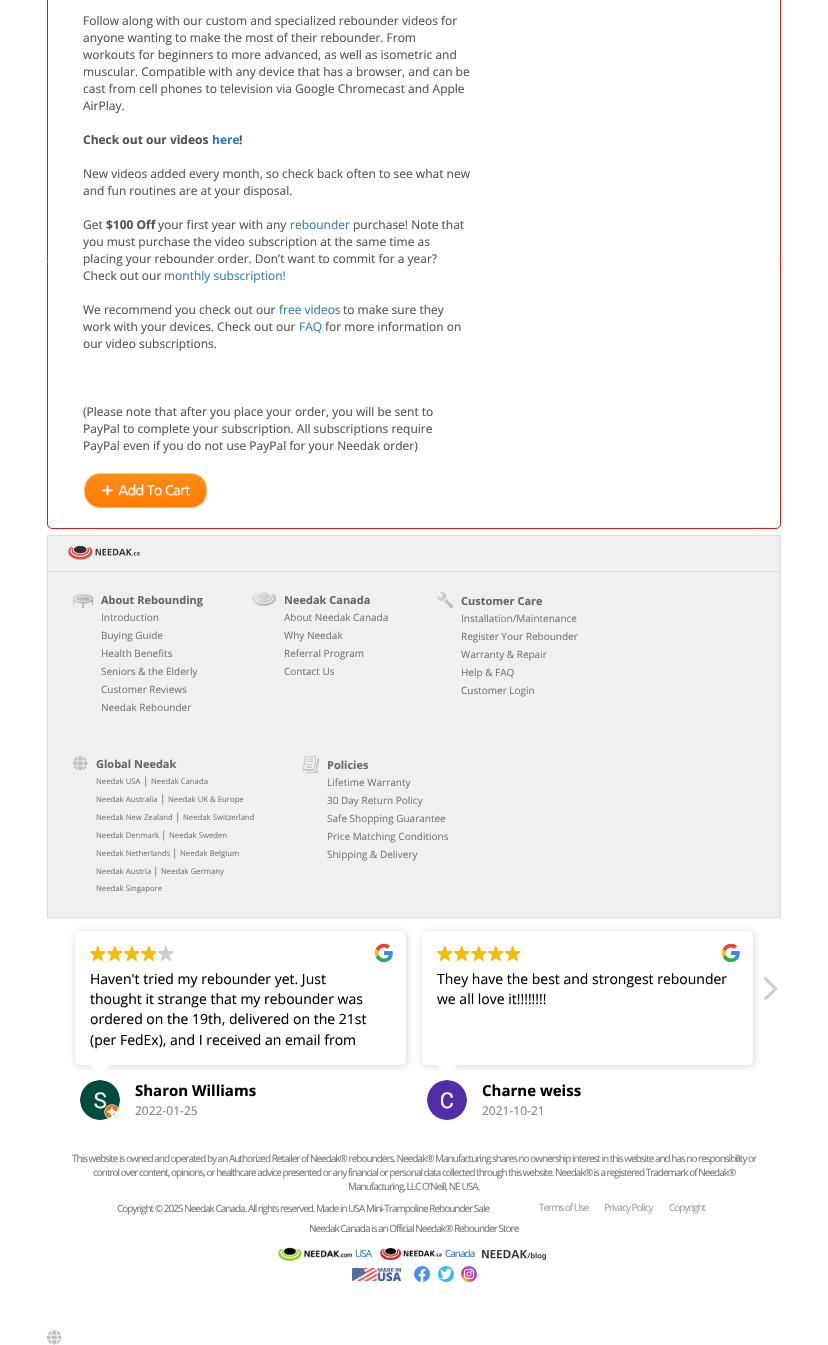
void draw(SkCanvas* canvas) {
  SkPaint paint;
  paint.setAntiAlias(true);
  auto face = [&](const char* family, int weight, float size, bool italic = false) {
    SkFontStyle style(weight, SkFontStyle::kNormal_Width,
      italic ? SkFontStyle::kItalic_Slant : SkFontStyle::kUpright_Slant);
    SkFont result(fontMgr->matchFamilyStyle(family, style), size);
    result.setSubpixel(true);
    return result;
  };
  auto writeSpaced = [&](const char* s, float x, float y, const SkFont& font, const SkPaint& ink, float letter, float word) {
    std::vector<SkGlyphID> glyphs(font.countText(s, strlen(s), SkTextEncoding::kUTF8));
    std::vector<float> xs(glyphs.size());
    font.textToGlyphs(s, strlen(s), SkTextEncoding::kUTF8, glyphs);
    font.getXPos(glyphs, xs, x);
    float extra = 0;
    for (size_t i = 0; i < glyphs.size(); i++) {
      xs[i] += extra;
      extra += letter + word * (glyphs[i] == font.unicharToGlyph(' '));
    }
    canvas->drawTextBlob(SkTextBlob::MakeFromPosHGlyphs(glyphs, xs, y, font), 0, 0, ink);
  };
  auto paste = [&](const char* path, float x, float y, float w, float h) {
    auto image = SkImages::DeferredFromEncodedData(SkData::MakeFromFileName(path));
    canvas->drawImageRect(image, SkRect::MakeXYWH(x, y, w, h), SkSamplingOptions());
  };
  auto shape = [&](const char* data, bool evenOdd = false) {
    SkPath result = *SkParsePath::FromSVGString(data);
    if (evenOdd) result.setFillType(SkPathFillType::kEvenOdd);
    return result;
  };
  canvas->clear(0xffffffff);
  paint.setStroke(true);
  paint.setStrokeWidth(1);
  paint.setColor(0xffdd1d1d);
  canvas->drawRoundRect(SkRect::MakeXYWH(47.5f, -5.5f, 733, 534), 4.5f, 4.5f, paint);
  paste("img/1.png", 84, 473, 123, 35);
  paint.setStroke(false);
  paint.setColor(0xfff0f0f0);
  canvas->drawRect(SkRect::MakeXYWH(47.5f, 535.5f, 733, 36), paint);
  paint.setStroke(true);
  paint.setColor(0xffdddddd);
  canvas->drawRect(SkRect::MakeXYWH(47.5f, 535.5f, 733, 36), paint);
  paste("img/2.png", 68, 546, 72, 14);
  paint.setStroke(false);
  {
    const struct { float x, y, w, h; SkColor color; } items[] = {
      {48, 572, 732, 345, 0xfff0f0f0},
      {780, 572, 1, 346, 0xffdddddd},
      {47, 917, 734, 1, 0xffdddddd},
      {47, 572, 1, 346, 0xffdddddd},
    };
    for (auto [x, y, w, h, color] : items) {
      paint.setColor(color);
      canvas->drawRect(SkRect::MakeXYWH(x, y, w, h), paint);
    }
  }
  paste("img/3.png", 73, 594, 20, 14);
  paste("img/4.png", 252, 592, 24, 15);
  paste("img/5.png", 437, 592, 16, 16);
  paste("img/6.png", 73, 756, 15, 15);
  paste("img/7.png", 303, 756, 16, 17);
  paint.setColor(0x26000000);
  paint.setMaskFilter(SkMaskFilter::MakeBlur(kNormal_SkBlurStyle, 3.5f));
  canvas->drawRoundRect(SkRect::MakeXYWH(76, 932, 331, 134), 5, 5, paint);
  paint.setMaskFilter(nullptr);
  paint.setColor(0xffffffff);
  canvas->drawRoundRect(SkRect::MakeXYWH(75, 931, 331, 134), 5, 5, paint);
  paste("img/8.png", 374, 943, 19, 20);
  paste("img/9.png", 90, 946, 16, 15);
  paste("img/9.png", 107, 946, 16, 15);
  paste("img/9.png", 124, 946, 16, 15);
  paste("img/9.png", 141, 946, 16, 15);
  paste("img/10.png", 158, 946, 16, 15);
  canvas->drawPath(shape("M90 1065H110L100 1075Z"), paint);
  paste("img/11.png", 80, 1080, 40, 40);
  paint.setColor(0x26000000);
  paint.setMaskFilter(SkMaskFilter::MakeBlur(kNormal_SkBlurStyle, 3.5f));
  canvas->drawRoundRect(SkRect::MakeXYWH(423, 932, 331, 134), 5, 5, paint);
  paint.setMaskFilter(nullptr);
  paint.setColor(0xffffffff);
  canvas->drawRoundRect(SkRect::MakeXYWH(422, 931, 331, 134), 5, 5, paint);
  paste("img/8.png", 721, 943, 19, 20);
  paste("img/9.png", 437, 946, 16, 15);
  paste("img/9.png", 454, 946, 16, 15);
  paste("img/9.png", 471, 946, 16, 15);
  paste("img/9.png", 488, 946, 16, 15);
  paste("img/9.png", 505, 946, 16, 15);
  canvas->drawPath(shape("M437 1065H457L447 1075Z"), paint);
  paste("img/12.png", 427, 1080, 40, 40);
  paint.setColor(0xffcccccc);
  canvas->drawPath(shape("M766.5 977.5L777 988C777 989 777 989.5 776.5 990H775C774 989.5 764 980 764 979C764 977.5 765.5 976.5 766.5 977.5Z"), paint);
  canvas->drawPath(shape("M764.5 997.5L775 987.5C775.5 987 776.5 987.5 776.5 988L777 989.5C776.5 990 766.5 1000 766 1000C764.5 1000.5 763.5 998.5 764.5 997.5Z"), paint);
  paste("img/13.png", 278, 1247, 74, 14);
  paste("img/14.png", 380, 1248, 62, 12);
  paste("img/15.png", 482, 1250, 64, 10);
  paste("img/16.png", 352, 1268, 49, 13);
  paste("img/17.png", 414, 1266, 16, 16);
  paste("img/18.png", 438, 1266, 16, 16);
  paste("img/19.png", 461, 1266, 16, 16);
  paste("img/20.png", 47, 1330, 15, 15);
  auto f0 = face("Open Sans", 400, 12);
  paint.setColor(0xff525252);
  {
    const struct { const char* s; float x, y; } items[] = {
      {"Follow along with our custom and specialized rebounder videos for", 83, 25},
      {"anyone wanting to make the most of their rebounder. From", 83, 42},
      {"workouts for beginners to more advanced, as well as isometric and", 83, 59},
      {"muscular. Compatible with any device that has a browser, and can be", 83, 76},
      {"cast from cell phones to television via Google Chromecast and Apple", 83, 93},
      {"AirPlay.", 83, 110},
    };
    for (auto [s, x, y] : items) {
      canvas->drawString(s, x, y, f0, paint);
    }
  }
  auto f1 = face("Open Sans", 700, 12);
  canvas->drawString("Check out our videos", 83, 144, f1, paint);
  paint.setColor(0xff337ab7);
  canvas->drawString("here", 212, 144, f1, paint);
  paint.setColor(0xff525252);
  canvas->drawString("!", 239, 144, f1, paint);
  {
    const struct { const char* s; float x, y; } items[] = {
      {"New videos added every month, so check back often to see what new", 83, 178},
      {"and fun routines are at your disposal.", 83, 195},
      {"Get", 83, 229},
    };
    for (auto [s, x, y] : items) {
      canvas->drawString(s, x, y, f0, paint);
    }
  }
  canvas->drawString("$100 Off", 106, 229, f1, paint);
  canvas->drawString("your first year with any", 158, 229, f0, paint);
  paint.setColor(0xff337ab7);
  canvas->drawString("rebounder", 290, 229, f0, paint);
  paint.setColor(0xff525252);
  {
    const struct { const char* s; float x, y; } items[] = {
      {"purchase! Note that", 353, 229},
      {"you must purchase the video subscription at the same time as", 83, 246},
      {"placing your rebounder order. Don’t want to commit for a year?", 83, 263},
      {"Check out our", 83, 280},
    };
    for (auto [s, x, y] : items) {
      canvas->drawString(s, x, y, f0, paint);
    }
  }
  paint.setColor(0xff337ab7);
  canvas->drawString("monthly subscription!", 164, 280, f0, paint);
  paint.setColor(0xff525252);
  canvas->drawString("We recommend you check out our", 83, 314, f0, paint);
  paint.setColor(0xff337ab7);
  canvas->drawString("free videos", 279, 314, f0, paint);
  paint.setColor(0xff525252);
  canvas->drawString("to make sure they", 343, 314, f0, paint);
  canvas->drawString("work with your devices. Check out our", 83, 331, f0, paint);
  paint.setColor(0xff337ab7);
  canvas->drawString("FAQ", 299, 331, f0, paint);
  paint.setColor(0xff525252);
  {
    const struct { const char* s; float x, y; } items[] = {
      {"for more information on", 325, 331},
      {"our video subscriptions.", 83, 348},
      {"(Please note that after you place your order, you will be sent to", 83, 416},
      {"PayPal to complete your subscription. All subscriptions require", 83, 433},
      {"PayPal even if you do not use PayPal for your Needak order)", 83, 450},
    };
    for (auto [s, x, y] : items) {
      canvas->drawString(s, x, y, f0, paint);
    }
  }
  auto f2 = face("Open Sans", 700, 11);
  paint.setColor(0xff666666);
  canvas->drawString("About Rebounding", 101, 604, f2, paint);
  auto f3 = face("Open Sans", 400, 10);
  paint.setColor(0xff777777);
  {
    const struct { const char* s; float x, y; } items[] = {
      {"Introduction", 101, 621},
      {"Buying Guide", 101, 639},
      {"Health Benefits", 101, 657},
      {"Seniors & the Elderly", 101, 675},
      {"Customer Reviews", 101, 693},
      {"Needak Rebounder", 101, 711},
    };
    for (auto [s, x, y] : items) {
      canvas->drawString(s, x, y, f3, paint);
    }
  }
  paint.setColor(0xff666666);
  canvas->drawString("Needak Canada", 284, 604, f2, paint);
  paint.setColor(0xff777777);
  {
    const struct { const char* s; float x, y; } items[] = {
      {"About Needak Canada", 284, 621},
      {"Why Needak", 284, 639},
      {"Referral Program", 284, 657},
      {"Contact Us", 284, 675},
    };
    for (auto [s, x, y] : items) {
      canvas->drawString(s, x, y, f3, paint);
    }
  }
  paint.setColor(0xff666666);
  canvas->drawString("Customer Care", 461, 605, f2, paint);
  paint.setColor(0xff777777);
  {
    const struct { const char* s; float x, y; } items[] = {
      {"Installation/Maintenance", 461, 622},
      {"Register Your Rebounder", 461, 640},
      {"Warranty & Repair", 461, 658},
      {"Help & FAQ", 461, 676},
      {"Customer Login", 461, 694},
    };
    for (auto [s, x, y] : items) {
      canvas->drawString(s, x, y, f3, paint);
    }
  }
  paint.setColor(0xff666666);
  canvas->drawString("Global Needak", 96, 768, f2, paint);
  auto f4 = face("Open Sans", 400, 7.75f);
  paint.setColor(0xff777777);
  canvas->drawString("Needak USA", 96, 784, f4, paint);
  canvas->drawString("|", 143, 784, f3, paint);
  canvas->drawString("Needak Canada", 151, 784, f4, paint);
  canvas->drawString("Needak Australia", 96, 802, f4, paint);
  canvas->drawString("|", 160, 802, f3, paint);
  canvas->drawString("Needak UK & Europe", 168, 802, f4, paint);
  canvas->drawString("Needak New Zealand", 96, 820, f4, paint);
  canvas->drawString("|", 175, 820, f3, paint);
  canvas->drawString("Needak Switzerland", 183, 820, f4, paint);
  canvas->drawString("Needak Denmark", 96, 838, f4, paint);
  canvas->drawString("|", 161, 838, f3, paint);
  canvas->drawString("Needak Sweden", 169, 838, f4, paint);
  canvas->drawString("Needak Netherlands", 96, 856, f4, paint);
  canvas->drawString("|", 172, 856, f3, paint);
  canvas->drawString("Needak Belgium", 180, 856, f4, paint);
  canvas->drawString("Needak Austria", 96, 874, f4, paint);
  canvas->drawString("|", 153, 874, f3, paint);
  canvas->drawString("Needak Germany", 161, 874, f4, paint);
  canvas->drawString("Needak Singapore", 96, 891, f4, paint);
  paint.setColor(0xff666666);
  canvas->drawString("Policies", 327, 769, f2, paint);
  paint.setColor(0xff777777);
  {
    const struct { const char* s; float x, y; } items[] = {
      {"Lifetime Warranty", 327, 786},
      {"30 Day Return Policy", 327, 804},
      {"Safe Shopping Guarantee", 327, 822},
      {"Price Matching Conditions", 327, 840},
      {"Shipping & Delivery", 327, 858},
    };
    for (auto [s, x, y] : items) {
      canvas->drawString(s, x, y, f3, paint);
    }
  }
  auto f5 = face("Open Sans", 400, 14);
  paint.setColor(0xff000000);
  {
    const struct { const char* s; float x, y; } items[] = {
      {"Haven't tried my rebounder yet. Just", 90, 984},
      {"thought it strange that my rebounder was", 90, 1004},
      {"ordered on the 19th, delivered on the 21st", 90, 1024},
      {"(per FedEx), and I received an email from", 90, 1045},
    };
    for (auto [s, x, y] : items) {
      canvas->drawString(s, x, y, f5, paint);
    }
  }
  auto f6 = face("Open Sans", 700, 15);
  canvas->drawString("Sharon Williams", 135, 1096, f6, paint);
  paint.setColor(0xff808080);
  canvas->drawString("2022-01-25", 135, 1115, f0, paint);
  paint.setColor(0xff000000);
  canvas->drawString("They have the best and strongest rebounder", 437, 984, f5, paint);
  canvas->drawString("we all love it!!!!!!!!", 437, 1004, f5, paint);
  canvas->drawString("Charne weiss", 482, 1096, f6, paint);
  paint.setColor(0xff808080);
  canvas->drawString("2021-10-21", 482, 1115, f0, paint);
  paint.setColor(0xff777777);
  {
    const struct { const char* s; float x, y; } items[] = {
      {"This website is owned and operated by an Authorized Retailer of Needak® rebounders. Needak® Manufacturing shares no ownership interest in this website and has no responsibility or", 72, 1162},
      {"control over content, opinions, or healthcare advice presented or any financial or personal data collected through this website. Needak® is a registered Trademark of Needak®", 93, 1176},
      {"Manufacturing, LLC O'Neill, NE USA.", 348, 1190},
      {"Copyright © 2025 Needak Canada. All rights reserved. Made in USA Mini-Trampoline Rebounder Sale", 117, 1212},
    };
    for (auto [s, x, y] : items) {
      writeSpaced(s, x, y, f3, paint, -1, 0);
    }
  }
  paint.setColor(0xffa0a0a0);
  {
    const struct { const char* s; float x, y; } items[] = {
      {"Terms of Use", 539, 1211},
      {"Privacy Policy", 604, 1211},
      {"Copyright", 669, 1211},
    };
    for (auto [s, x, y] : items) {
      writeSpaced(s, x, y, f3, paint, -1, 0);
    }
  }
  paint.setColor(0xff777777);
  writeSpaced("Needak Canada is an Official Needak® Rebounder Store", 309, 1232, f3, paint, -1, 0);
  paint.setColor(0xff337ab7);
  writeSpaced("USA", 355, 1257, f3, paint, -1, 0);
  writeSpaced("Canada", 445, 1257, f3, paint, -1, 0);
}
